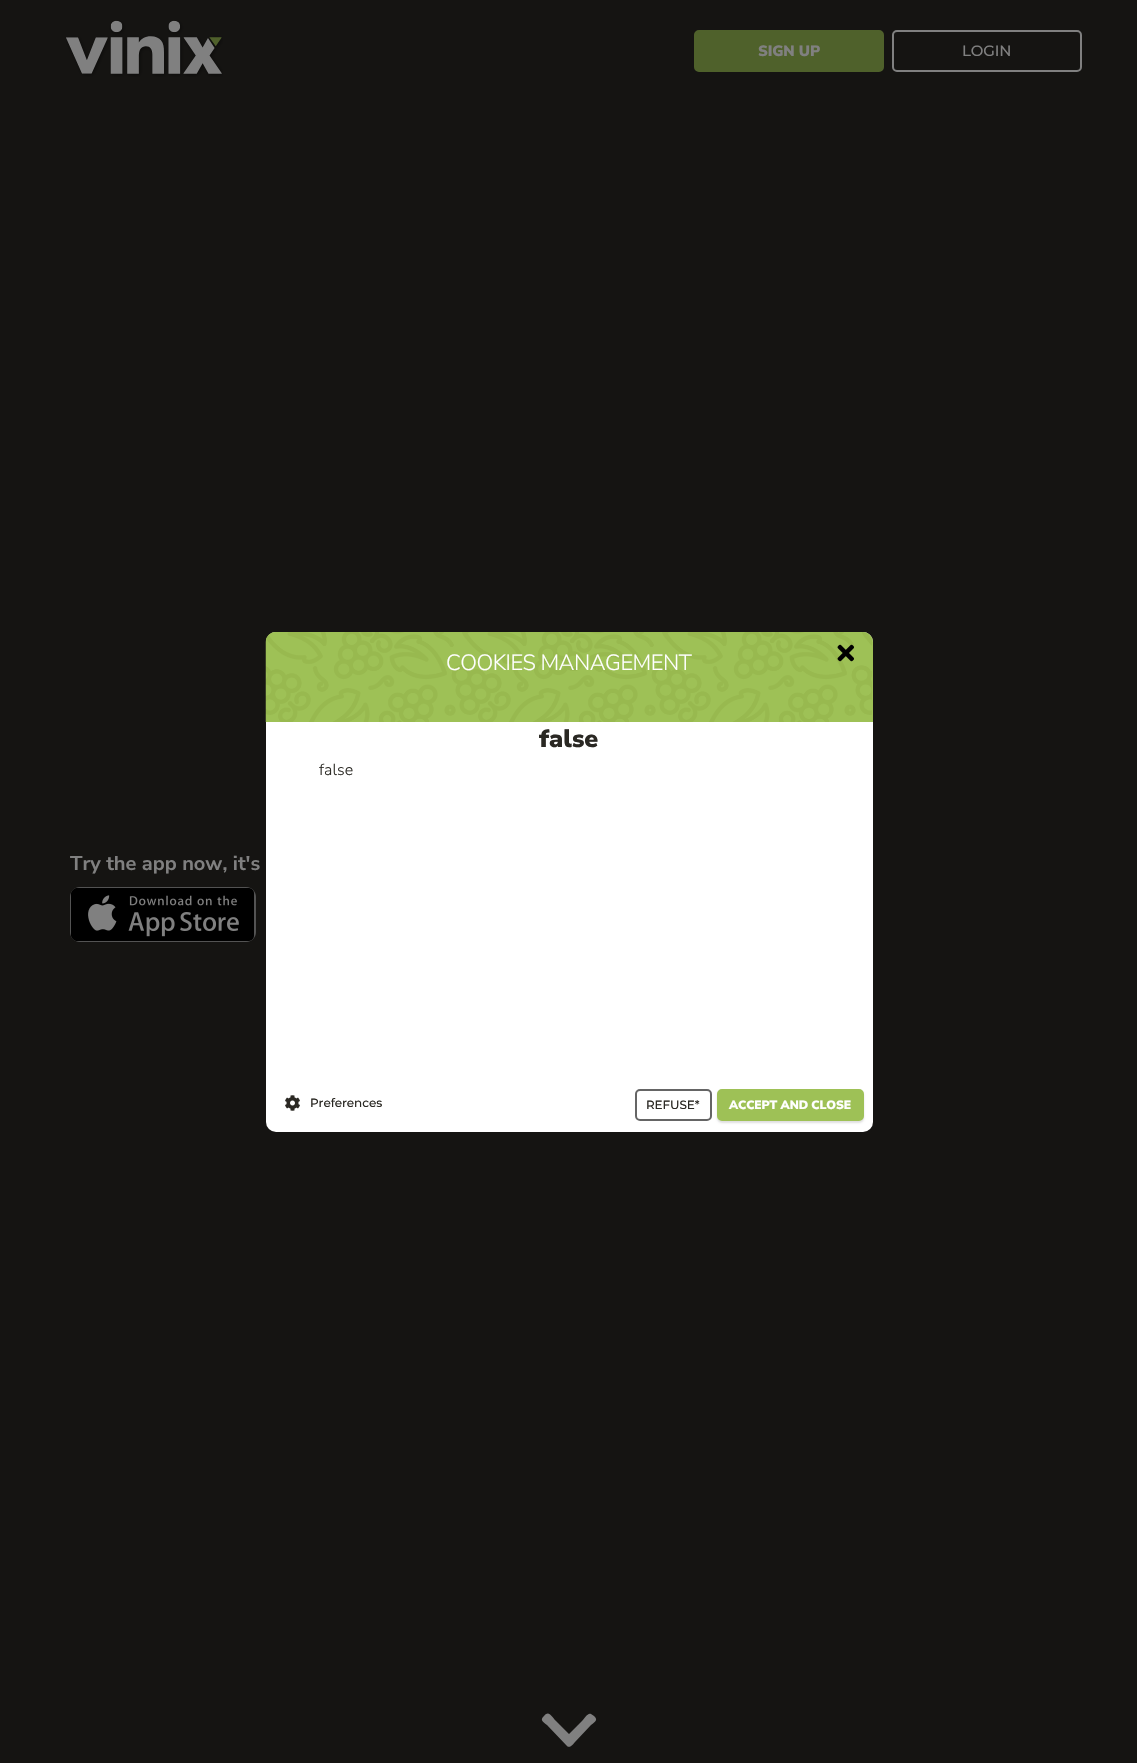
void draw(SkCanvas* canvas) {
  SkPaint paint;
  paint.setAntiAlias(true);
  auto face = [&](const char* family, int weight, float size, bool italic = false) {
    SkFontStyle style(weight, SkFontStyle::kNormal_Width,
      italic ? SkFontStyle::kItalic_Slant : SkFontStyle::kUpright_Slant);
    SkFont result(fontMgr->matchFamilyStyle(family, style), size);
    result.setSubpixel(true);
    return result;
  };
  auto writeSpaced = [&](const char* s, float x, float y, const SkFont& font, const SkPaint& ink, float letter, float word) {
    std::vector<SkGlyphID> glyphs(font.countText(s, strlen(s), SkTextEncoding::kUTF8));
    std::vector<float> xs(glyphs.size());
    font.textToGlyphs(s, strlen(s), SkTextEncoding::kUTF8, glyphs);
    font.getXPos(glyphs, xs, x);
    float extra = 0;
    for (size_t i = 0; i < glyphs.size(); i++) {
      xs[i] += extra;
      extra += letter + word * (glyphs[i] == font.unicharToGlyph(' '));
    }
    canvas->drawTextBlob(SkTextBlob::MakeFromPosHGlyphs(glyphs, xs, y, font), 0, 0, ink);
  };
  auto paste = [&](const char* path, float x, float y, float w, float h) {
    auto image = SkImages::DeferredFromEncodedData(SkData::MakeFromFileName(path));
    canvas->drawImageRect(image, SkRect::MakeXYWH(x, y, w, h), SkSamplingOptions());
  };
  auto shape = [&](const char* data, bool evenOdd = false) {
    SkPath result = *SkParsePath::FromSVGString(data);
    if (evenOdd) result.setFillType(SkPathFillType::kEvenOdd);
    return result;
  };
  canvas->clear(0xff151412);
  paste("img/1.png", 66, 20, 157, 57);
  paint.setColor(0xff4f612b);
  canvas->drawRoundRect(SkRect::MakeXYWH(695, 31, 188, 40), 4, 4, paint);
  paint.setStroke(true);
  paint.setStrokeWidth(2);
  canvas->drawRoundRect(SkRect::MakeXYWH(695, 31, 188, 40), 4, 4, paint);
  paint.setColor(0xff808080);
  canvas->drawRoundRect(SkRect::MakeXYWH(893, 31, 188, 40), 4, 4, paint);
  paste("img/2.png", 70, 887, 186, 55);
  paint.setStroke(false);
  canvas->drawPath(shape("M567 1746L547 1725C542 1721 540 1720 544 1716C549 1710 551 1716 556 1721L569 1734L582 1721C584 1719 588 1712 591 1714L594 1716C598 1720 596 1721 591 1725L575 1742C574 1743 570 1749 567 1746Z"), paint);
  paint.setColor(0xffffffff);
  canvas->drawRoundRect(SkRect::MakeXYWH(266, 632, 607, 500), 10, 10, paint);
  paint.setColor(0xff9ec156);
  canvas->drawPath(shape("M276 632H863C868.5 632 873 636.5 873 642V722H266V642C266 636.5 270.5 632 276 632Z"), paint);
  paste("img/3.png", 265, 632, 607, 90);
  paste("img/4.png", 837, 644, 17, 18);
  paste("img/5.png", 285, 1095, 15, 16);
  paint.setStroke(true);
  paint.setColor(0xff656565);
  canvas->drawRoundRect(SkRect::MakeXYWH(636, 1090, 75, 30), 4, 4, paint);
  paint.setStroke(false);
  paint.setColor(0x1f000000);
  paint.setMaskFilter(SkMaskFilter::MakeBlur(kNormal_SkBlurStyle, 1));
  canvas->drawRoundRect(SkRect::MakeXYWH(717, 1091, 147, 32), 5, 5, paint);
  paint.setMaskFilter(nullptr);
  paint.setColor(0xff9ec156);
  canvas->drawRoundRect(SkRect::MakeXYWH(718, 1090, 145, 30), 4, 4, paint);
  paint.setStroke(true);
  canvas->drawRoundRect(SkRect::MakeXYWH(718, 1090, 145, 30), 4, 4, paint);
  auto f0 = face("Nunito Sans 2", 200, 15);
  paint.setStroke(false);
  paint.setColor(0xff808080);
  writeSpaced("SIGN UP", 758, 56, f0, paint, -0.1f, 0);
  auto f1 = face("Montserrat", 100, 15);
  writeSpaced("LOGIN", 962, 56, f1, paint, -0.1f, 0);
  auto f2 = face("Nunito Sans", 200, 20);
  canvas->drawString("Try the app now, it's", 70, 870, f2, paint);
  auto f3 = face("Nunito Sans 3", 200, 22);
  paint.setColor(0xffffffff);
  writeSpaced("COOKIES MANAGEMENT", 446, 670, f3, paint, -0.5f, 0);
  auto f4 = face("Nunito Sans 2", 200, 25);
  paint.setColor(0xff2a2823);
  canvas->drawString("false", 539, 747, f4, paint);
  auto f5 = face("Nunito Sans 3", 200, 16);
  canvas->drawString("false", 319, 775, f5, paint);
  auto f6 = face("Montserrat", 100, 12);
  writeSpaced("Preferences", 310, 1107, f6, paint, -0.1f, 0);
  writeSpaced("REFUSE*", 646, 1109, f6, paint, -0.1f, 0);
  auto f7 = face("Nunito Sans 2", 200, 12);
  paint.setColor(0xffffffff);
  writeSpaced("ACCEPT AND CLOSE", 729, 1109, f7, paint, -0.1f, 0);
}
